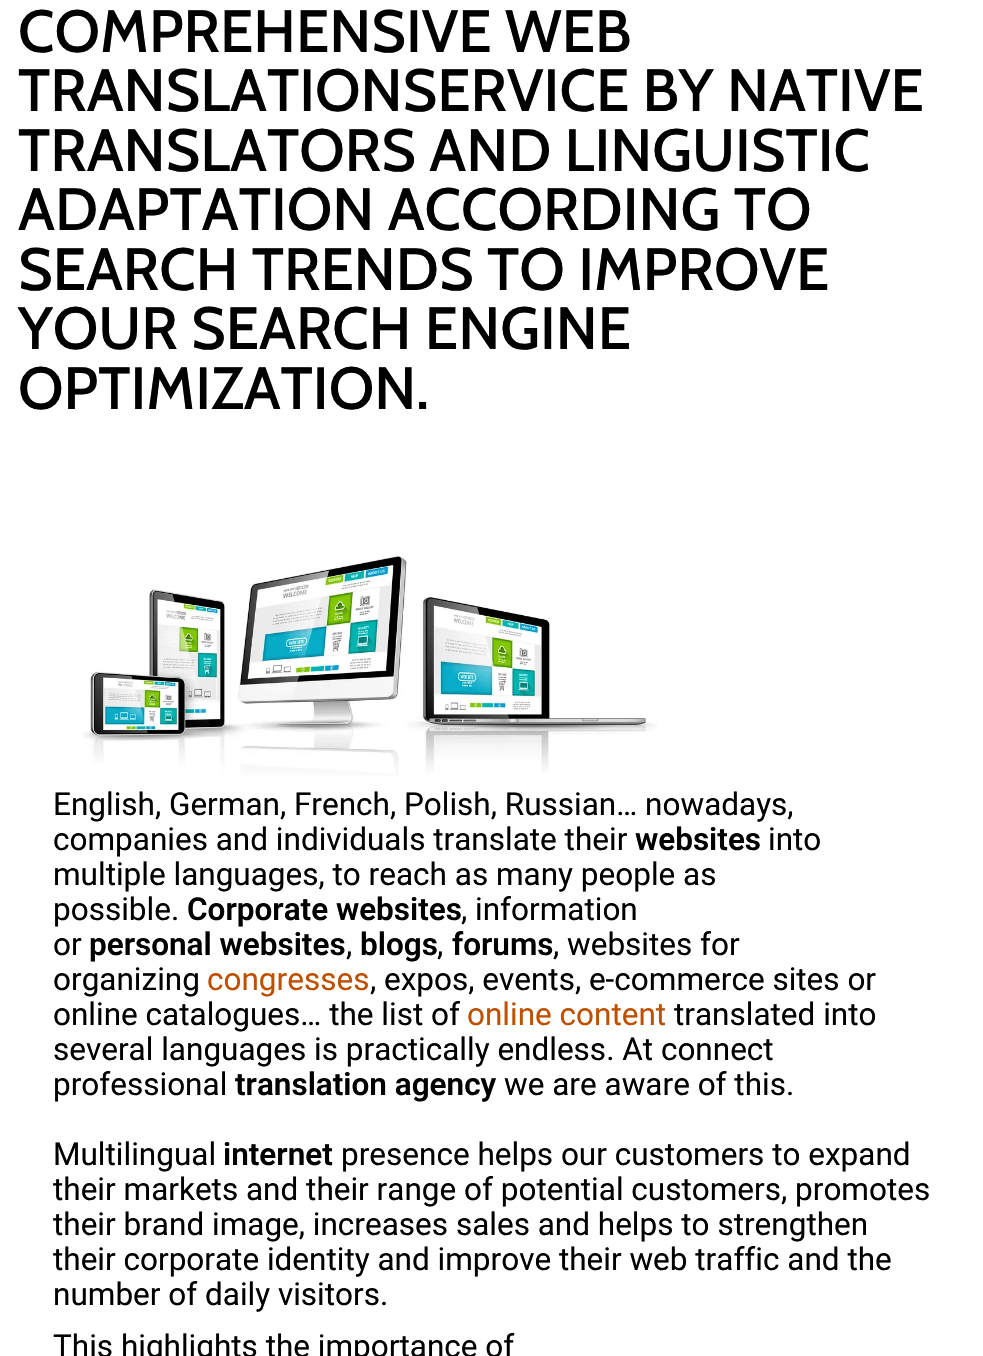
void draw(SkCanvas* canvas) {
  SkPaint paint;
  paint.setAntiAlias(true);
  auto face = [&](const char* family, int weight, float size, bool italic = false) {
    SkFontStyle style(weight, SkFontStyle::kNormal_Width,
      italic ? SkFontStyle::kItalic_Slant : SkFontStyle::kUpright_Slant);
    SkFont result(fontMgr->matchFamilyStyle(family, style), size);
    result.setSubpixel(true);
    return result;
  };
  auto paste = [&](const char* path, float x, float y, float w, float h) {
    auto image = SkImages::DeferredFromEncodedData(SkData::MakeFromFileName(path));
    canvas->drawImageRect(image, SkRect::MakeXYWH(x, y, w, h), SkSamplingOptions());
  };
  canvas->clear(0xffffffff);
  paste("img/1.png", 82, 556, 575, 220);
  auto f0 = face("Cabin", 500, 59.5f);
  paint.setColor(0xff000000);
  {
    const struct { const char* s; float x, y; } items[] = {
      {"COMPREHENSIVE WEB", 18, 52},
      {"TRANSLATIONSERVICE BY NATIVE", 18, 111},
      {"TRANSLATORS AND LINGUISTIC", 18, 171},
      {"ADAPTATION ACCORDING TO", 18, 230},
      {"SEARCH TRENDS TO IMPROVE", 18, 290},
      {"YOUR SEARCH ENGINE", 18, 349},
      {"OPTIMIZATION.", 18, 409},
    };
    for (auto [s, x, y] : items) {
      canvas->drawString(s, x, y, f0, paint);
    }
  }
  auto f1 = face("Roboto", 400, 31.5f);
  canvas->drawString("English, German, French, Polish, Russian… nowadays,", 53, 815, f1, paint);
  canvas->drawString("companies and individuals translate their", 53, 850, f1, paint);
  auto f2 = face("Roboto", 600, 31.5f);
  canvas->drawString("websites", 635, 850, f2, paint);
  {
    const struct { const char* s; float x, y; } items[] = {
      {"into", 768, 850},
      {"multiple languages, to reach as many people as", 53, 885},
      {"possible.", 53, 920},
    };
    for (auto [s, x, y] : items) {
      canvas->drawString(s, x, y, f1, paint);
    }
  }
  canvas->drawString("Corporate websites", 187, 920, f2, paint);
  canvas->drawString(", information", 461, 920, f1, paint);
  canvas->drawString("or", 53, 955, f1, paint);
  canvas->drawString("personal websites", 89, 955, f2, paint);
  canvas->drawString(",", 346, 955, f1, paint);
  canvas->drawString("blogs", 360, 955, f2, paint);
  canvas->drawString(",", 437, 955, f1, paint);
  canvas->drawString("forums", 452, 955, f2, paint);
  canvas->drawString(", websites for", 553, 955, f1, paint);
  canvas->drawString("organizing", 53, 990, f1, paint);
  paint.setColor(0xffbe5000);
  canvas->drawString("congresses", 207, 990, f1, paint);
  paint.setColor(0xff000000);
  canvas->drawString(", expos, events, e-commerce sites or", 370, 990, f1, paint);
  canvas->drawString("online catalogues… the list of", 53, 1025, f1, paint);
  paint.setColor(0xffbe5000);
  canvas->drawString("online content", 467, 1025, f1, paint);
  paint.setColor(0xff000000);
  {
    const struct { const char* s; float x, y; } items[] = {
      {"translated into", 674, 1025},
      {"several languages is practically endless. At connect", 53, 1060},
      {"professional", 53, 1095},
    };
    for (auto [s, x, y] : items) {
      canvas->drawString(s, x, y, f1, paint);
    }
  }
  canvas->drawString("translation agency", 235, 1095, f2, paint);
  canvas->drawString("we are aware of this.", 504, 1095, f1, paint);
  canvas->drawString("Multilingual", 53, 1165, f1, paint);
  canvas->drawString("internet", 223, 1165, f2, paint);
  {
    const struct { const char* s; float x, y; } items[] = {
      {"presence helps our customers to expand", 341, 1165},
      {"their markets and their range of potential customers, promotes", 53, 1200},
      {"their brand image, increases sales and helps to strengthen", 53, 1235},
      {"their corporate identity and improve their web traffic and the", 53, 1270},
      {"number of daily visitors.", 53, 1305},
      {"This highlights the importance of", 53, 1357},
    };
    for (auto [s, x, y] : items) {
      canvas->drawString(s, x, y, f1, paint);
    }
  }
}
